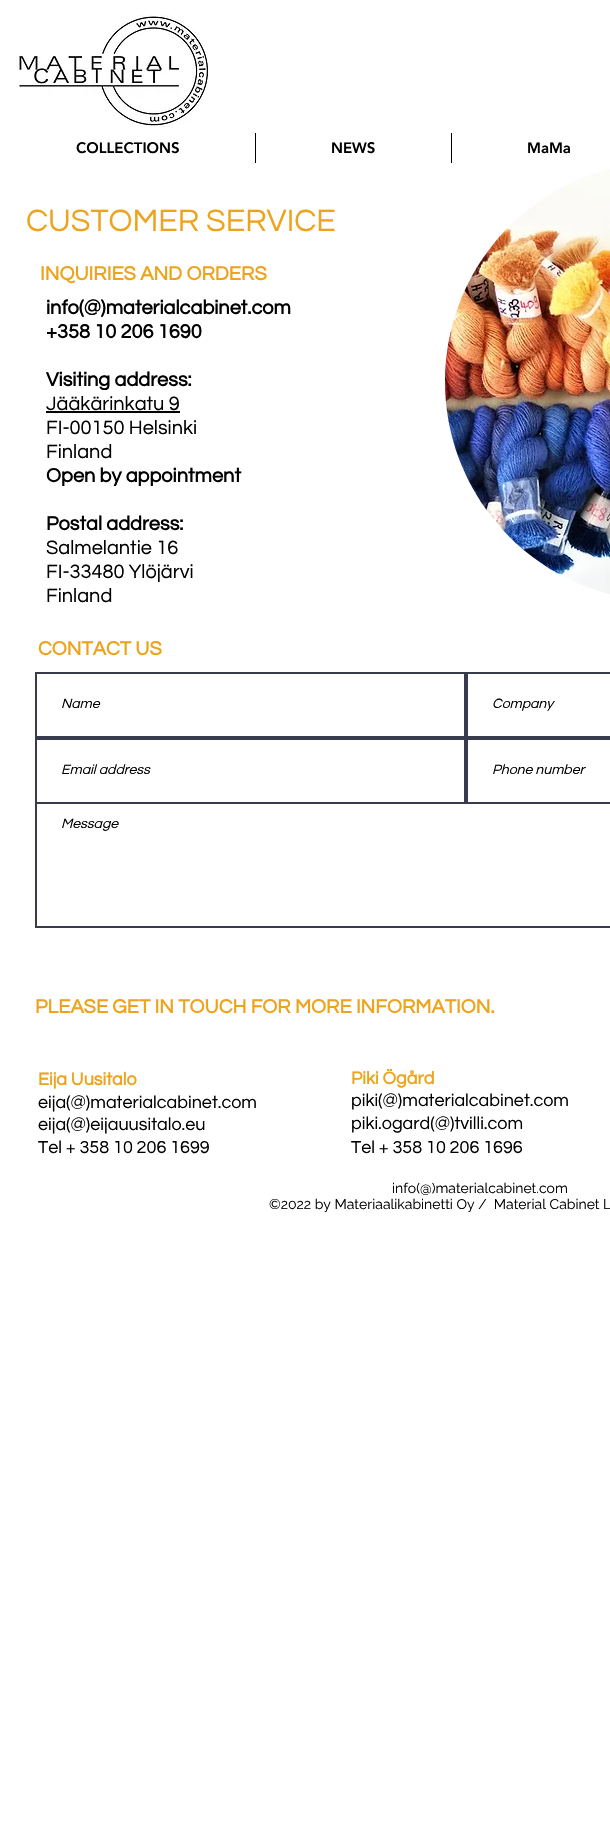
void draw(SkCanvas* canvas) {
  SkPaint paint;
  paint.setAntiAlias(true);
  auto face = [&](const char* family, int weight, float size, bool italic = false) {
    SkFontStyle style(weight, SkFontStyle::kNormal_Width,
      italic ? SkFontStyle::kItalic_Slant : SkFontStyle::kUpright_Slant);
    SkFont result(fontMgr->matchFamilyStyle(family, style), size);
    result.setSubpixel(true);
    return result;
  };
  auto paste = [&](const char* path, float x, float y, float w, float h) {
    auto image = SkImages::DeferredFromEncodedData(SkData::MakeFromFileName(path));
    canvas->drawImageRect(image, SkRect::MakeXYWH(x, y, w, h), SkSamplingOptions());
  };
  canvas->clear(0xffffffff);
  paste("img/1.png", 16, 15, 192, 112);
  paint.setColor(0xff000000);
  canvas->drawRect(SkRect::MakeXYWH(255, 133, 1, 30), paint);
  canvas->drawRect(SkRect::MakeXYWH(451, 133, 1, 30), paint);
  paste("img/2.png", 445, 169, 165, 425);
  canvas->drawRect(SkRect::MakeXYWH(46, 411, 134, 2), paint);
  paint.setStroke(true);
  paint.setStrokeWidth(2);
  paint.setColor(0xff373b4d);
  canvas->drawRect(SkRect::MakeXYWH(36, 673, 429, 64), paint);
  canvas->drawRect(SkRect::MakeXYWH(467, 673, 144, 64), paint);
  canvas->drawRect(SkRect::MakeXYWH(36, 739, 429, 64), paint);
  canvas->drawRect(SkRect::MakeXYWH(467, 739, 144, 64), paint);
  canvas->drawRect(SkRect::MakeXYWH(36, 803, 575, 124), paint);
  auto f0 = face("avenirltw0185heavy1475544", 900, 15);
  paint.setStroke(false);
  paint.setColor(0xff000000);
  {
    const struct { const char* s; float x, y; } items[] = {
      {"COLLECTIONS", 76, 153},
      {"NEWS", 331, 153},
      {"MaMa", 527, 153},
    };
    for (auto [s, x, y] : items) {
      canvas->drawString(s, x, y, f0, paint);
    }
  }
  auto f1 = face("Questrial", 400, 32);
  paint.setColor(0xffeda41c);
  canvas->drawString("CUSTOMER SERVICE", 26, 231, f1, paint);
  auto f2 = face("Questrial", 700, 20);
  canvas->drawString("INQUIRIES AND ORDERS", 40, 280, f2, paint);
  paint.setColor(0xff000000);
  {
    const struct { const char* s; float x, y; } items[] = {
      {"info(@)materialcabinet.com", 46, 314},
      {"+358 10 206 1690", 46, 338},
      {"Visiting address:", 46, 386},
    };
    for (auto [s, x, y] : items) {
      canvas->drawString(s, x, y, f2, paint);
    }
  }
  auto f3 = face("Questrial", 400, 20);
  {
    const struct { const char* s; float x, y; } items[] = {
      {"Jääkärinkatu 9", 46, 410},
      {"FI-00150 Helsinki", 46, 434},
      {"Finland", 46, 458},
    };
    for (auto [s, x, y] : items) {
      canvas->drawString(s, x, y, f3, paint);
    }
  }
  canvas->drawString("Open by appointment", 46, 482, f2, paint);
  canvas->drawString("Postal address:", 46, 530, f2, paint);
  {
    const struct { const char* s; float x, y; } items[] = {
      {"Salmelantie 16", 46, 554},
      {"FI-33480 Ylöjärvi", 46, 578},
      {"Finland", 46, 602},
    };
    for (auto [s, x, y] : items) {
      canvas->drawString(s, x, y, f3, paint);
    }
  }
  paint.setColor(0xffeda41c);
  canvas->drawString("CONTACT US", 38, 655, f2, paint);
  auto f4 = face("Questrial", 400, 14, true);
  paint.setColor(0xff000000);
  {
    const struct { const char* s; float x, y; } items[] = {
      {"Name", 61, 708},
      {"Company", 492, 708},
      {"Email address", 61, 774},
      {"Phone number", 492, 774},
      {"Message", 61, 828},
    };
    for (auto [s, x, y] : items) {
      canvas->drawString(s, x, y, f4, paint);
    }
  }
  paint.setColor(0xffeda41c);
  canvas->drawString("PLEASE GET IN TOUCH FOR MORE INFORMATION.", 35, 1013, f2, paint);
  auto f5 = face("Questrial", 700, 18);
  canvas->drawString("Eija Uusitalo", 38, 1085, f5, paint);
  auto f6 = face("Questrial", 400, 18);
  paint.setColor(0xff000000);
  {
    const struct { const char* s; float x, y; } items[] = {
      {"eija(@)materialcabinet.com", 38, 1108},
      {"eija(@)eijauusitalo.eu", 38, 1130},
      {"Tel + 358 10 206 1699", 38, 1153},
    };
    for (auto [s, x, y] : items) {
      canvas->drawString(s, x, y, f6, paint);
    }
  }
  paint.setColor(0xffeda41c);
  canvas->drawString("Piki Ögård", 351, 1084, f5, paint);
  paint.setColor(0xff000000);
  {
    const struct { const char* s; float x, y; } items[] = {
      {"piki(@)materialcabinet.com", 351, 1106},
      {"piki.ogard(@)tvilli.com", 351, 1129},
      {"Tel + 358 10 206 1696", 351, 1153},
    };
    for (auto [s, x, y] : items) {
      canvas->drawString(s, x, y, f6, paint);
    }
  }
  auto f7 = face("Raleway", 400, 14);
  canvas->drawString("info(@)materialcabinet.com", 392, 1193, f7, paint);
  canvas->drawString("©2022 by Materiaalikabinetti Oy /  Material Cabinet L", 269, 1209, f7, paint);
}
